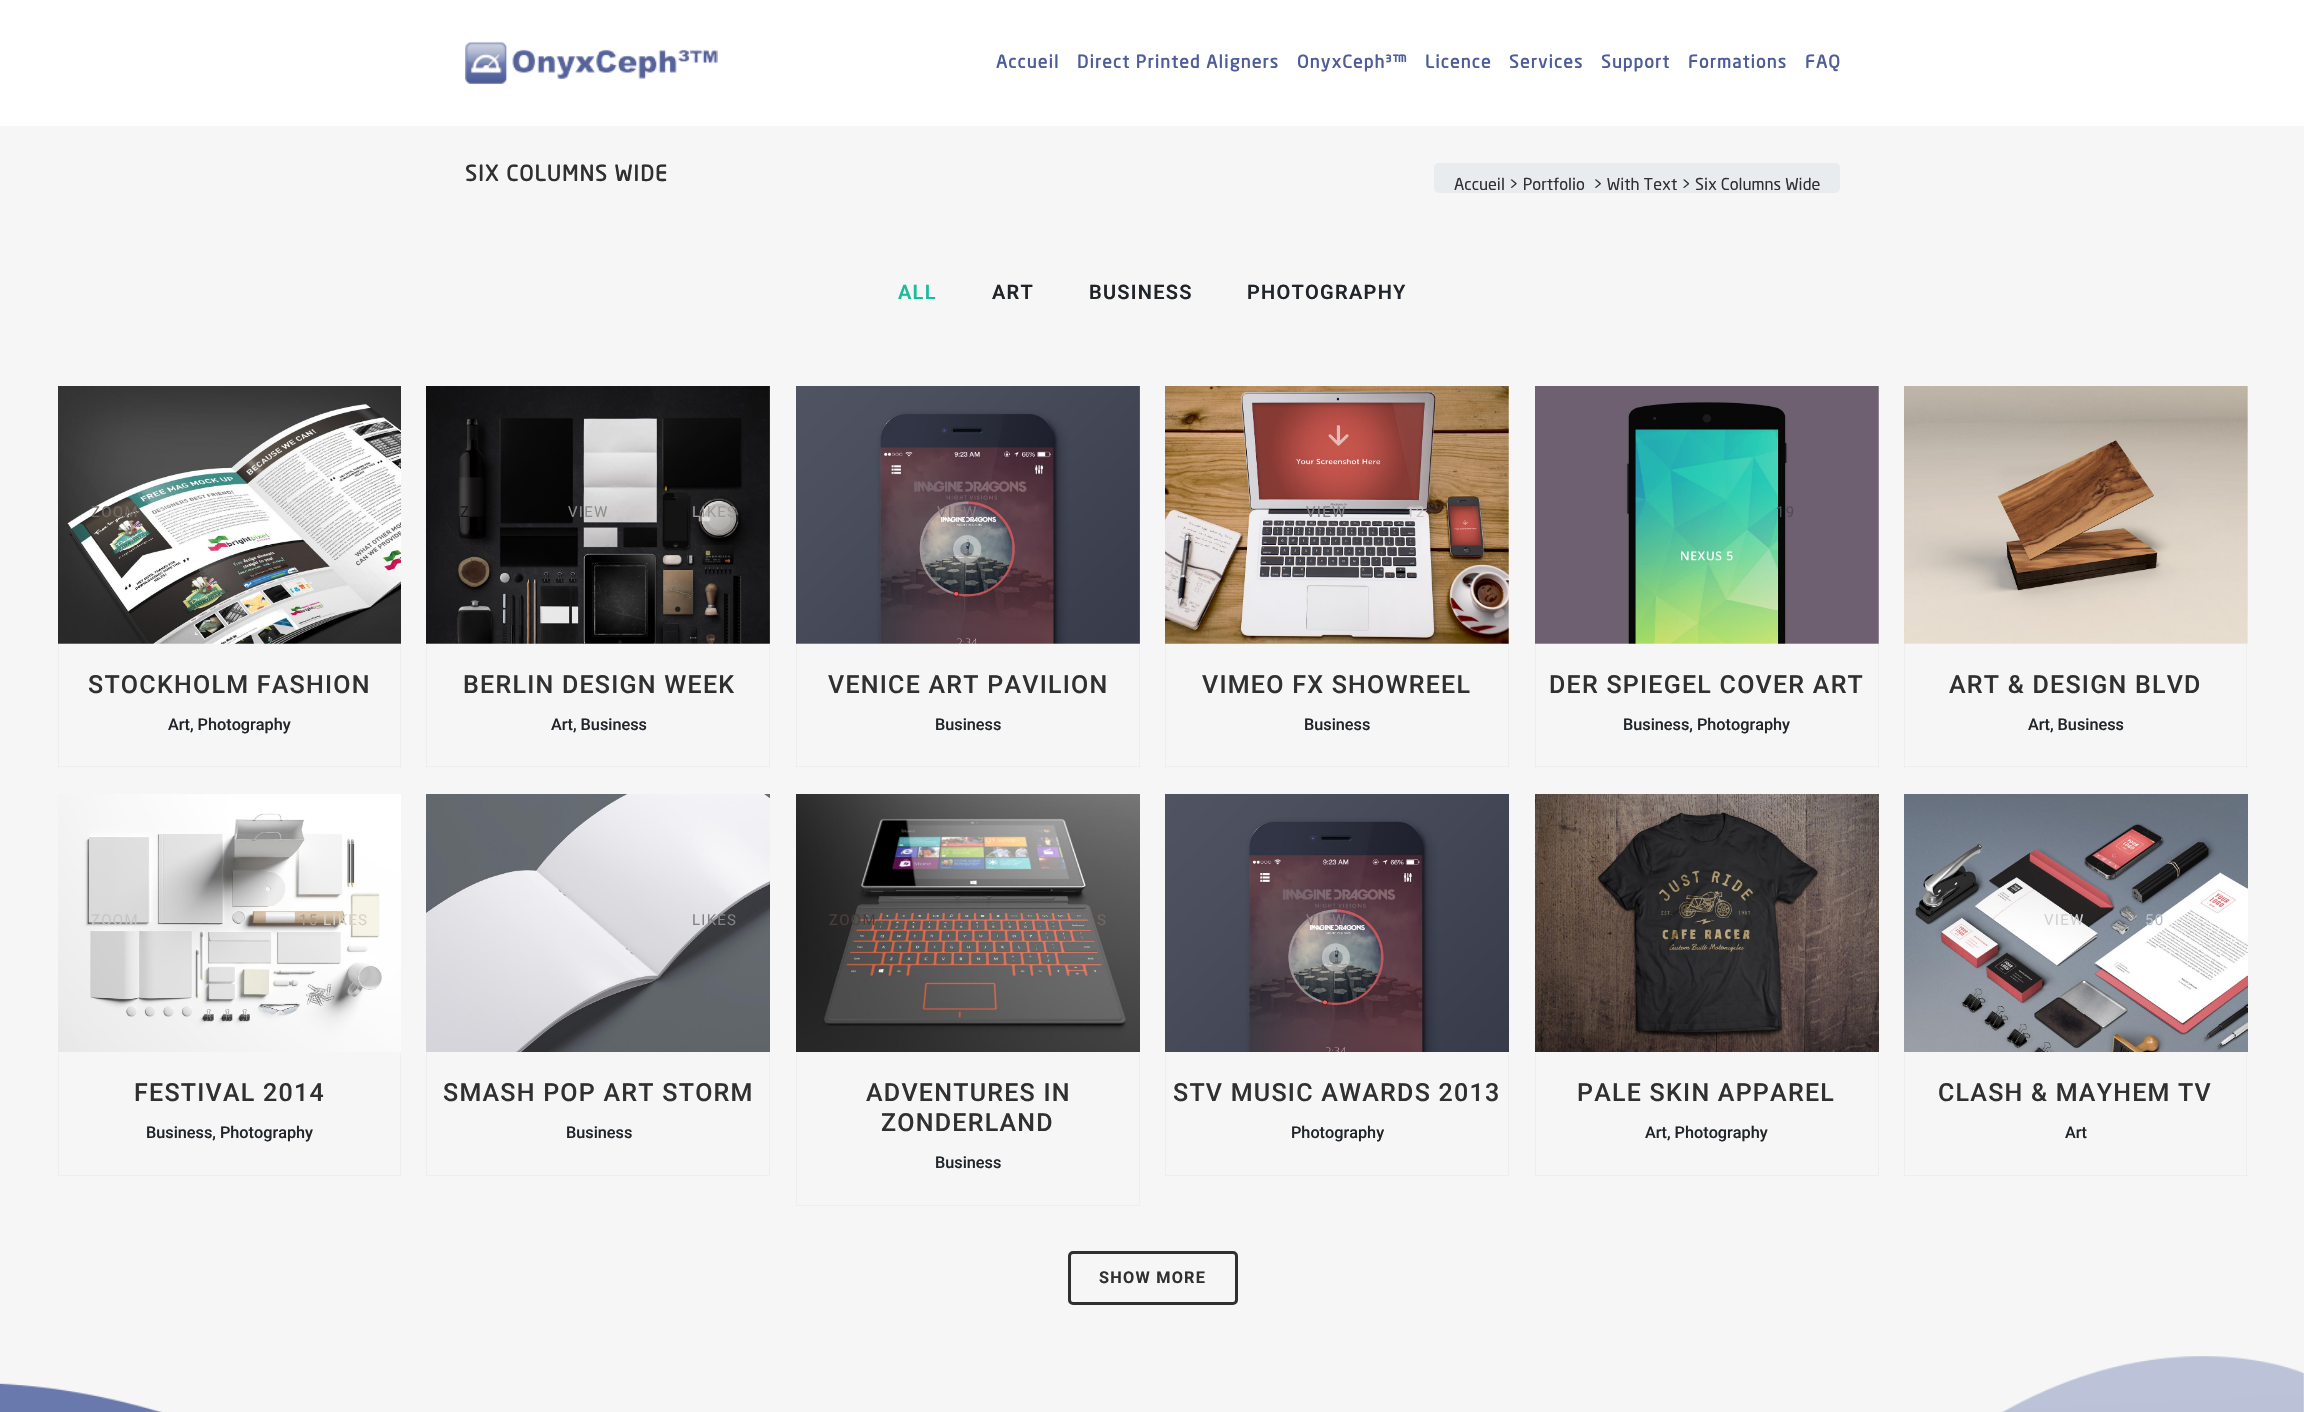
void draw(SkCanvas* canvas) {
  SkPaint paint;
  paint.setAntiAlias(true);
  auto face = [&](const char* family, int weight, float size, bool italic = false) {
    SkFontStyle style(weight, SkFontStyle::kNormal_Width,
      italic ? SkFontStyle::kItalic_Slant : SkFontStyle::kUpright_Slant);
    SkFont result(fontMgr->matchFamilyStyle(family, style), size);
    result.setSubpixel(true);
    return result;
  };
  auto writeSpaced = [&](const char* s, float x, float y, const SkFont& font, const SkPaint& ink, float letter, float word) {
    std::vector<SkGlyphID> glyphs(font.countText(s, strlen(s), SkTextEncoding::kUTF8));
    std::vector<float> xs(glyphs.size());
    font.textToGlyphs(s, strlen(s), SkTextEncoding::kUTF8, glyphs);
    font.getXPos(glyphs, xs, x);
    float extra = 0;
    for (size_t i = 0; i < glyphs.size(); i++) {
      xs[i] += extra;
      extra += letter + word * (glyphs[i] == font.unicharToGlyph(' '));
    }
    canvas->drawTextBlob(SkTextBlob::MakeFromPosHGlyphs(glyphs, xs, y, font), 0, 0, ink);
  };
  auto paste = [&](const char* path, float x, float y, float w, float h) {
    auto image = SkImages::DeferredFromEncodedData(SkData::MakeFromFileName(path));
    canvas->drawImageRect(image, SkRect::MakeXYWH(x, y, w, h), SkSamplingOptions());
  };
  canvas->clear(0xfff6f6f6);
  paint.setColor(0xffffffff);
  canvas->drawRect(SkRect::MakeXYWH(0, 0, 2304, 126), paint);
  paste("img/1.png", 465, 41, 253, 44);
  paint.setColor(0xffe9ecef);
  canvas->drawRoundRect(SkRect::MakeXYWH(1434, 163, 406, 30), 5, 5, paint);
  paste("img/2.png", 58, 386, 343, 258);
  {
    const struct { float x, y, w, h; SkColor color; } items[] = {
      {400, 644, 1, 124, 0xffeeeeee},
      {58, 766, 343, 1, 0xffeeeeee},
      {58, 644, 1, 124, 0xffeeeeee},
    };
    for (auto [x, y, w, h, color] : items) {
      paint.setColor(color);
      canvas->drawRect(SkRect::MakeXYWH(x, y, w, h), paint);
    }
  }
  paste("img/3.png", 426, 386, 344, 258);
  {
    const struct { float x, y, w, h; SkColor color; } items[] = {
      {769, 644, 1, 124, 0xffeeeeee},
      {426, 766, 344, 1, 0xffeeeeee},
      {426, 644, 1, 124, 0xffeeeeee},
    };
    for (auto [x, y, w, h, color] : items) {
      paint.setColor(color);
      canvas->drawRect(SkRect::MakeXYWH(x, y, w, h), paint);
    }
  }
  paste("img/4.png", 796, 386, 344, 258);
  {
    const struct { float x, y, w, h; SkColor color; } items[] = {
      {1139, 644, 1, 124, 0xffeeeeee},
      {796, 766, 344, 1, 0xffeeeeee},
      {796, 644, 1, 124, 0xffeeeeee},
    };
    for (auto [x, y, w, h, color] : items) {
      paint.setColor(color);
      canvas->drawRect(SkRect::MakeXYWH(x, y, w, h), paint);
    }
  }
  paste("img/5.png", 1165, 386, 344, 258);
  {
    const struct { float x, y, w, h; SkColor color; } items[] = {
      {1508, 644, 1, 124, 0xffeeeeee},
      {1165, 766, 344, 1, 0xffeeeeee},
      {1165, 644, 1, 124, 0xffeeeeee},
    };
    for (auto [x, y, w, h, color] : items) {
      paint.setColor(color);
      canvas->drawRect(SkRect::MakeXYWH(x, y, w, h), paint);
    }
  }
  paste("img/6.png", 1535, 386, 344, 258);
  {
    const struct { float x, y, w, h; SkColor color; } items[] = {
      {1878, 644, 1, 124, 0xffeeeeee},
      {1535, 766, 344, 1, 0xffeeeeee},
      {1535, 644, 1, 124, 0xffeeeeee},
    };
    for (auto [x, y, w, h, color] : items) {
      paint.setColor(color);
      canvas->drawRect(SkRect::MakeXYWH(x, y, w, h), paint);
    }
  }
  paste("img/7.png", 1904, 386, 344, 258);
  {
    const struct { float x, y, w, h; SkColor color; } items[] = {
      {2246, 644, 1, 124, 0xffeeeeee},
      {1904, 766, 344, 1, 0xffeeeeee},
      {1904, 644, 1, 124, 0xffeeeeee},
    };
    for (auto [x, y, w, h, color] : items) {
      paint.setColor(color);
      canvas->drawRect(SkRect::MakeXYWH(x, y, w, h), paint);
    }
  }
  paste("img/8.png", 58, 794, 343, 258);
  {
    const struct { float x, y, w, h; SkColor color; } items[] = {
      {400, 1053, 1, 123, 0xffeeeeee},
      {58, 1175, 343, 1, 0xffeeeeee},
      {58, 1053, 1, 123, 0xffeeeeee},
    };
    for (auto [x, y, w, h, color] : items) {
      paint.setColor(color);
      canvas->drawRect(SkRect::MakeXYWH(x, y, w, h), paint);
    }
  }
  paste("img/9.png", 426, 794, 344, 258);
  {
    const struct { float x, y, w, h; SkColor color; } items[] = {
      {769, 1053, 1, 123, 0xffeeeeee},
      {426, 1175, 344, 1, 0xffeeeeee},
      {426, 1053, 1, 123, 0xffeeeeee},
    };
    for (auto [x, y, w, h, color] : items) {
      paint.setColor(color);
      canvas->drawRect(SkRect::MakeXYWH(x, y, w, h), paint);
    }
  }
  paste("img/10.png", 796, 794, 344, 258);
  {
    const struct { float x, y, w, h; SkColor color; } items[] = {
      {1139, 1053, 1, 153, 0xffeeeeee},
      {796, 1205, 344, 1, 0xffeeeeee},
      {796, 1053, 1, 153, 0xffeeeeee},
    };
    for (auto [x, y, w, h, color] : items) {
      paint.setColor(color);
      canvas->drawRect(SkRect::MakeXYWH(x, y, w, h), paint);
    }
  }
  paste("img/11.png", 1165, 794, 344, 258);
  {
    const struct { float x, y, w, h; SkColor color; } items[] = {
      {1508, 1053, 1, 123, 0xffeeeeee},
      {1165, 1175, 344, 1, 0xffeeeeee},
      {1165, 1053, 1, 123, 0xffeeeeee},
    };
    for (auto [x, y, w, h, color] : items) {
      paint.setColor(color);
      canvas->drawRect(SkRect::MakeXYWH(x, y, w, h), paint);
    }
  }
  paste("img/12.png", 1535, 794, 344, 258);
  {
    const struct { float x, y, w, h; SkColor color; } items[] = {
      {1878, 1053, 1, 123, 0xffeeeeee},
      {1535, 1175, 344, 1, 0xffeeeeee},
      {1535, 1053, 1, 123, 0xffeeeeee},
    };
    for (auto [x, y, w, h, color] : items) {
      paint.setColor(color);
      canvas->drawRect(SkRect::MakeXYWH(x, y, w, h), paint);
    }
  }
  paste("img/13.png", 1904, 794, 344, 258);
  {
    const struct { float x, y, w, h; SkColor color; } items[] = {
      {2246, 1053, 1, 123, 0xffeeeeee},
      {1904, 1175, 344, 1, 0xffeeeeee},
      {1904, 1053, 1, 123, 0xffeeeeee},
    };
    for (auto [x, y, w, h, color] : items) {
      paint.setColor(color);
      canvas->drawRect(SkRect::MakeXYWH(x, y, w, h), paint);
    }
  }
  paint.setStroke(true);
  paint.setStrokeWidth(3);
  paint.setColor(0xff303030);
  canvas->drawRoundRect(SkRect::MakeXYWH(1069.5f, 1252.5f, 167, 51), 3.5f, 3.5f, paint);
  paste("img/14.png", 0, 1356, 2304, 56);
  auto f0 = face("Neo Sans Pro", 700, 17.5f);
  paint.setStroke(false);
  paint.setColor(0xff4e5d99);
  {
    const struct { const char* s; float x, y; } items[] = {
      {"Accueil", 996, 68},
      {"Direct Printed Aligners", 1077, 68},
      {"OnyxCeph³™", 1297, 68},
      {"Licence", 1425, 68},
      {"Services", 1509, 68},
      {"Support", 1601, 68},
      {"Formations", 1688, 68},
      {"FAQ", 1805, 68},
    };
    for (auto [s, x, y] : items) {
      writeSpaced(s, x, y, f0, paint, 1.25f, 0);
    }
  }
  auto f1 = face("Neo Sans Pro", 700, 21.25f);
  paint.setColor(0xff303030);
  writeSpaced("SIX COLUMNS WIDE", 465, 181, f1, paint, 1.25f, 0);
  auto f2 = face("Neo Sans Pro", 400, 16.25f);
  canvas->drawString("Accueil > Portfolio", 1454, 190, f2, paint);
  canvas->drawString("> With Text > Six Columns Wide", 1593, 190, f2, paint);
  auto f3 = face("Roboto", 600, 20);
  paint.setColor(0xff1abc9c);
  writeSpaced("ALL", 898, 299, f3, paint, 1.25f, 0);
  paint.setColor(0xff212529);
  {
    const struct { const char* s; float x, y; } items[] = {
      {"ART", 992, 299},
      {"BUSINESS", 1089, 299},
      {"PHOTOGRAPHY", 1247, 299},
    };
    for (auto [s, x, y] : items) {
      writeSpaced(s, x, y, f3, paint, 1.25f, 0);
    }
  }
  auto f4 = face("Roboto", 400, 15);
  paint.setColor(0xff716a64);
  writeSpaced("ZOOM", 91, 517, f4, paint, 1.25f, 0);
  auto f5 = face("Roboto", 500, 25);
  paint.setColor(0xff303030);
  writeSpaced("STOCKHOLM FASHION", 88, 693, f5, paint, 1.25f, 0);
  auto f6 = face("Roboto", 500, 16.25f);
  paint.setColor(0xff212529);
  canvas->drawString("Art, Photography", 168, 730, f6, paint);
  paint.setColor(0xff191819);
  writeSpaced("Z", 460, 517, f4, paint, 1.25f, 0);
  paint.setColor(0xff8f8e8f);
  writeSpaced("VIEW", 568, 517, f4, paint, 1.25f, 0);
  paint.setColor(0xff9c9b98);
  writeSpaced("LIKES", 692, 517, f4, paint, 1.25f, 0);
  paint.setColor(0xff303030);
  writeSpaced("BERLIN DESIGN WEEK", 463, 693, f5, paint, 1.25f, 0);
  paint.setColor(0xff212529);
  canvas->drawString("Art, Business", 551, 730, f6, paint);
  paint.setColor(0xff87777e);
  writeSpaced("VIEW", 937, 517, f4, paint, 1.25f, 0);
  paint.setColor(0xff303030);
  writeSpaced("VENICE ART PAVILION", 828, 693, f5, paint, 1.25f, 0);
  paint.setColor(0xff212529);
  canvas->drawString("Business", 935, 730, f6, paint);
  paint.setColor(0xff838287);
  writeSpaced("VIEW", 1306, 517, f4, paint, 1.25f, 0);
  paint.setColor(0xffc8c5c8);
  writeSpaced("12", 1406, 517, f4, paint, 1.25f, 0);
  paint.setColor(0xff303030);
  writeSpaced("VIMEO FX SHOWREEL", 1202, 693, f5, paint, 1.25f, 0);
  paint.setColor(0xff212529);
  canvas->drawString("Business", 1304, 730, f6, paint);
  paint.setColor(0xff4f4b56);
  writeSpaced("19", 1776, 517, f4, paint, 1.25f, 0);
  paint.setColor(0xff303030);
  writeSpaced("DER SPIEGEL COVER ART", 1549, 693, f5, paint, 1.25f, 0);
  paint.setColor(0xff212529);
  canvas->drawString("Business, Photography", 1623, 730, f6, paint);
  paint.setColor(0xff303030);
  writeSpaced("ART & DESIGN BLVD", 1949, 693, f5, paint, 1.25f, 0);
  paint.setColor(0xff212529);
  canvas->drawString("Art, Business", 2028, 730, f6, paint);
  paint.setColor(0xffc8c5c8);
  writeSpaced("ZOOM", 91, 925, f4, paint, 1.25f, 0);
  paint.setColor(0xffae9c87);
  writeSpaced("15", 299, 925, f4, paint, 1.25f, 0);
  paint.setColor(0xffd9d1c3);
  writeSpaced("LIKES", 323, 925, f4, paint, 1.25f, 0);
  paint.setColor(0xff303030);
  writeSpaced("FESTIVAL 2014", 134, 1101, f5, paint, 1.25f, 0);
  paint.setColor(0xff212529);
  canvas->drawString("Business, Photography", 146, 1138, f6, paint);
  paint.setColor(0xff838287);
  writeSpaced("LIKES", 692, 925, f4, paint, 1.25f, 0);
  paint.setColor(0xff303030);
  writeSpaced("SMASH POP ART STORM", 443, 1101, f5, paint, 1.25f, 0);
  paint.setColor(0xff212529);
  canvas->drawString("Business", 566, 1138, f6, paint);
  paint.setColor(0xff483f3d);
  writeSpaced("ZOOM", 829, 925, f4, paint, 1.25f, 0);
  paint.setColor(0xff716a64);
  writeSpaced("S", 1097, 925, f4, paint, 1.25f, 0);
  paint.setColor(0xff303030);
  writeSpaced("ADVENTURES IN", 866, 1101, f5, paint, 1.25f, 0);
  writeSpaced("ZONDERLAND", 881, 1131, f5, paint, 1.25f, 0);
  paint.setColor(0xff212529);
  canvas->drawString("Business", 935, 1168, f6, paint);
  paint.setColor(0xff87777e);
  writeSpaced("VIEW", 1306, 925, f4, paint, 1.25f, 0);
  paint.setColor(0xff303030);
  writeSpaced("STV MUSIC AWARDS 2013", 1173, 1101, f5, paint, 1.25f, 0);
  paint.setColor(0xff212529);
  canvas->drawString("Photography", 1291, 1138, f6, paint);
  paint.setColor(0xff303030);
  writeSpaced("PALE SKIN APPAREL", 1577, 1101, f5, paint, 1.25f, 0);
  paint.setColor(0xff212529);
  canvas->drawString("Art, Photography", 1645, 1138, f6, paint);
  paint.setColor(0xffd2d1d1);
  writeSpaced("VIEW", 2044, 925, f4, paint, 1.25f, 0);
  paint.setColor(0xffbac0c7);
  writeSpaced("50", 2145, 925, f4, paint, 1.25f, 0);
  paint.setColor(0xff303030);
  writeSpaced("CLASH & MAYHEM TV", 1938, 1101, f5, paint, 1.25f, 0);
  paint.setColor(0xff212529);
  canvas->drawString("Art", 2065, 1138, f6, paint);
  auto f7 = face("Roboto", 700, 16.25f);
  paint.setColor(0xff303030);
  writeSpaced("SHOW MORE", 1099, 1283, f7, paint, 1.25f, 0);
}
